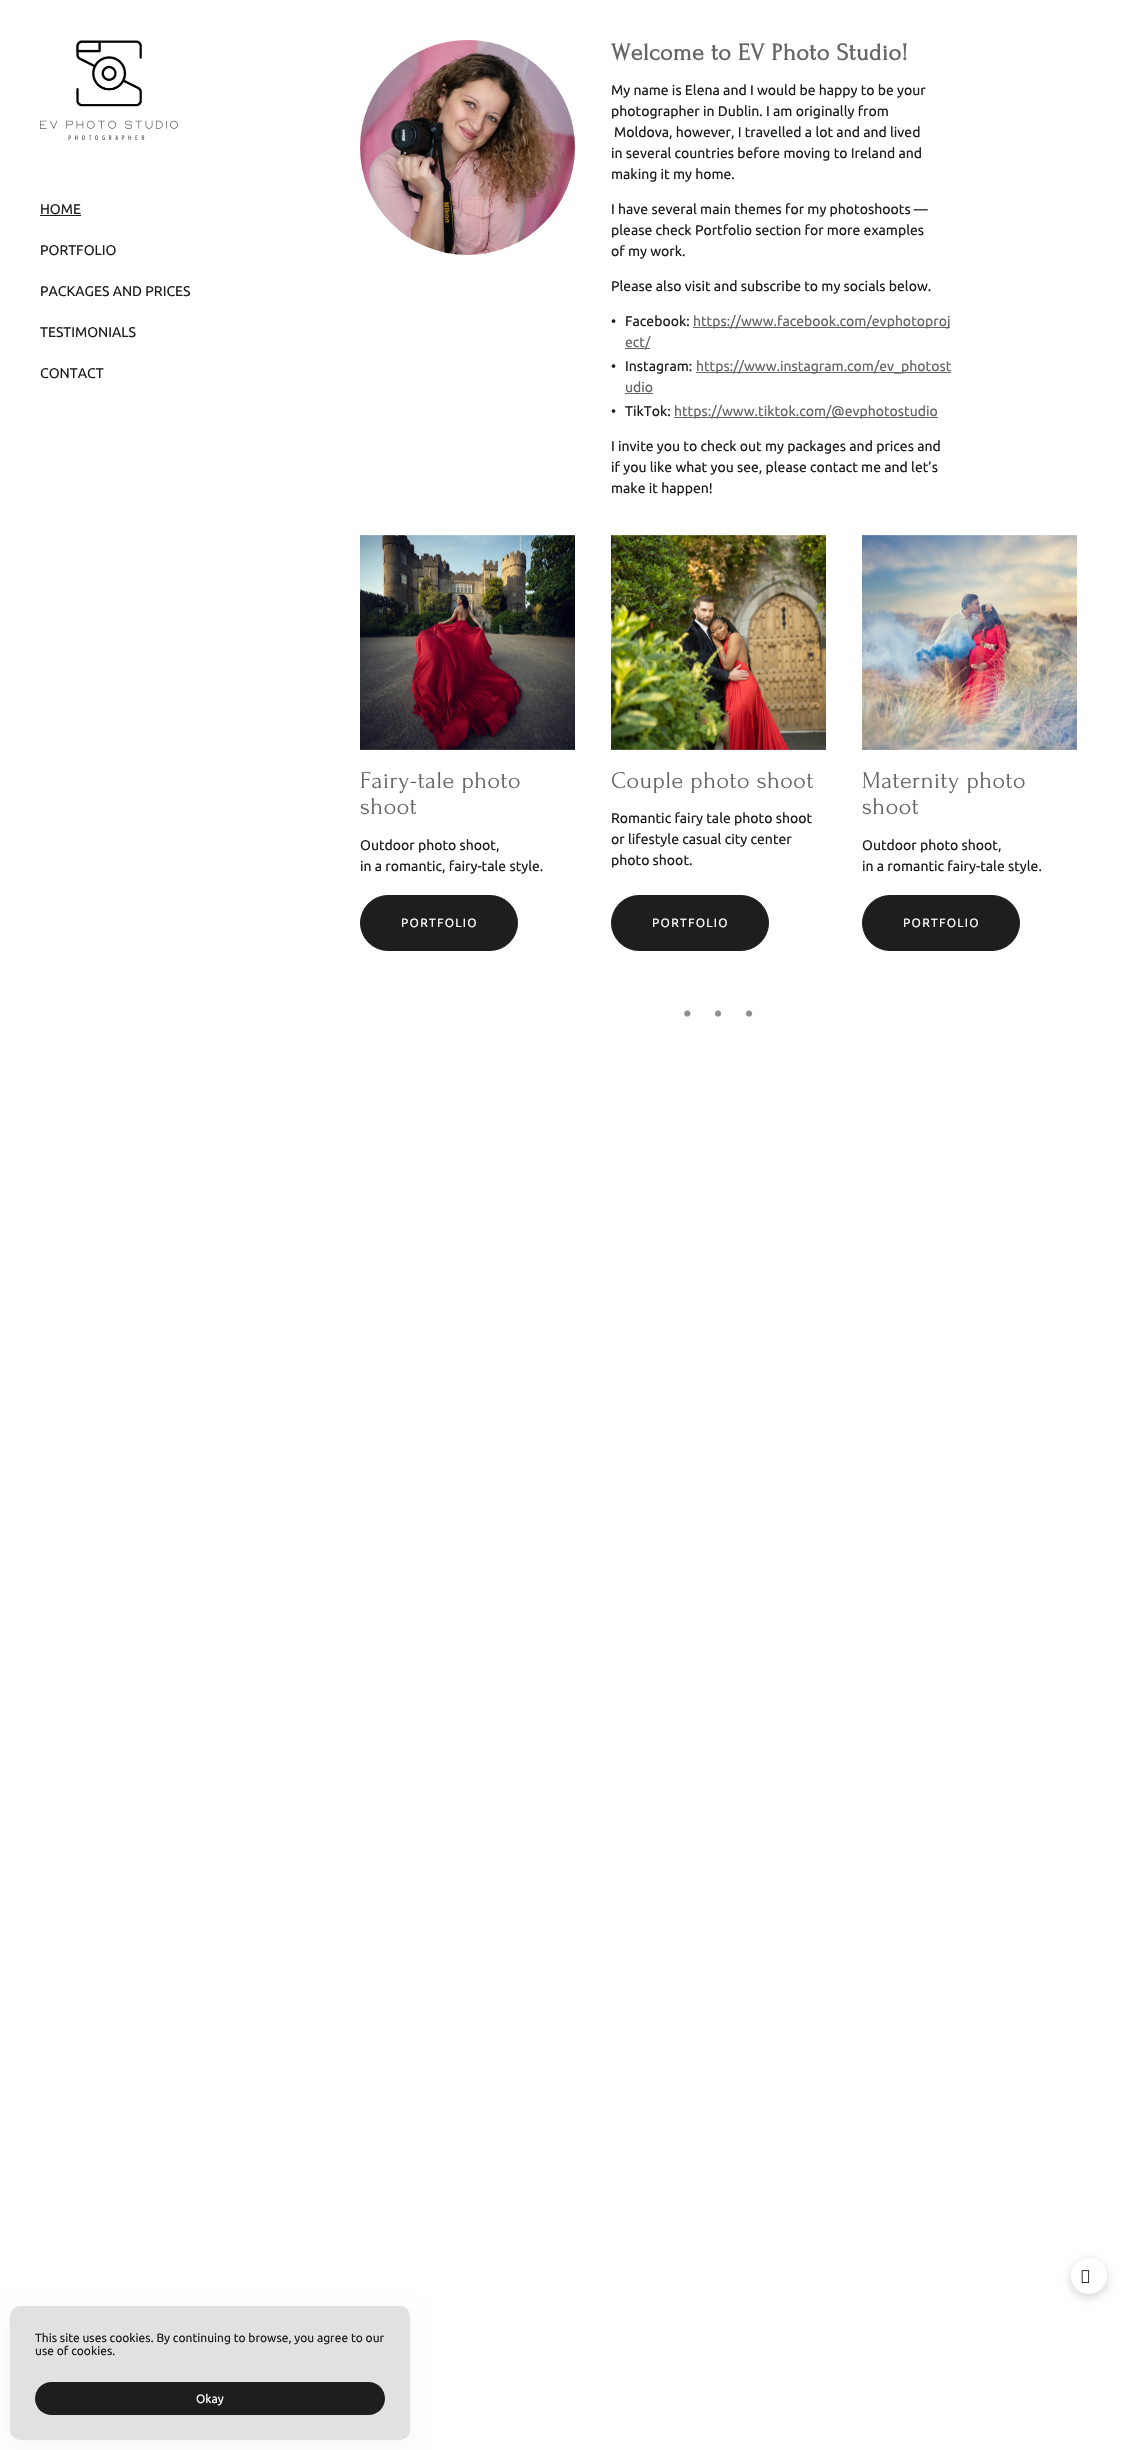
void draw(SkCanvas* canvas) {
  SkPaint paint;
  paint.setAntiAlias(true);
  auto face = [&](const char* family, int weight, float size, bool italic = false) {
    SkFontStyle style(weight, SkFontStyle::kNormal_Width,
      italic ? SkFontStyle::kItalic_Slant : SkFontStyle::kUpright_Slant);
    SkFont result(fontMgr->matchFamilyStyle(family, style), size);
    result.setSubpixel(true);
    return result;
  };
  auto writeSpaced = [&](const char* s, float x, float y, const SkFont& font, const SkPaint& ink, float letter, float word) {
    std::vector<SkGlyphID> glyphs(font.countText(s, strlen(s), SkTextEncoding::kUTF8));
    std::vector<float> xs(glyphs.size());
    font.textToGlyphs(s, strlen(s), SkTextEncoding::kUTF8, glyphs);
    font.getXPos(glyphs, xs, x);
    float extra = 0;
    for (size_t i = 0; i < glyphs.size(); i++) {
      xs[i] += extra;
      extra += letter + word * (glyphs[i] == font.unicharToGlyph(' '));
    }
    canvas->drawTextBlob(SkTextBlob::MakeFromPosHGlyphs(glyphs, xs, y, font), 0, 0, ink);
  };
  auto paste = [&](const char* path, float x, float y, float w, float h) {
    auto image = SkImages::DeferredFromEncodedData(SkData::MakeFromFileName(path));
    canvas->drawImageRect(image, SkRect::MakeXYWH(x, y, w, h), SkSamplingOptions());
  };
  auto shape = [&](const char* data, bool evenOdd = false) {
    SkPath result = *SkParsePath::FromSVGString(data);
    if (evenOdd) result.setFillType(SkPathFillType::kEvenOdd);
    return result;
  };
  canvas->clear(0xffffffff);
  paste("img/1.png", 40, 40, 138, 100);
  paint.setColor(0xff1e1e1e);
  canvas->drawRect(SkRect::MakeXYWH(40, 215, 41, 1), paint);
  paste("img/2.png", 360, 40, 215, 215);
  {
    const struct { float x, y, w, h; SkColor color; } items[] = {
      {693, 327, 257, 1, 0xff656565},
      {625, 348, 25, 1, 0xff656565},
      {696, 372, 255, 1, 0xff656565},
      {625, 393, 28, 1, 0xff656565},
      {674, 417, 264, 1, 0xff656565},
    };
    for (auto [x, y, w, h, color] : items) {
      paint.setColor(color);
      canvas->drawRect(SkRect::MakeXYWH(x, y, w, h), paint);
    }
  }
  paste("img/3.png", 360, 535, 215, 215);
  paint.setColor(0xff1e1e1e);
  canvas->drawRoundRect(SkRect::MakeXYWH(360.5f, 895.5f, 157, 55), 27.5f, 27.5f, paint);
  paint.setStroke(true);
  paint.setStrokeWidth(1);
  canvas->drawRoundRect(SkRect::MakeXYWH(360.5f, 895.5f, 157, 55), 27.5f, 27.5f, paint);
  paste("img/4.png", 611, 535, 215, 215);
  paint.setStroke(false);
  canvas->drawRoundRect(SkRect::MakeXYWH(611.5f, 895.5f, 157, 55), 27.5f, 27.5f, paint);
  paint.setStroke(true);
  canvas->drawRoundRect(SkRect::MakeXYWH(611.5f, 895.5f, 157, 55), 27.5f, 27.5f, paint);
  paste("img/5.png", 862, 535, 215, 215);
  paint.setStroke(false);
  canvas->drawRoundRect(SkRect::MakeXYWH(862.5f, 895.5f, 157, 55), 27.5f, 27.5f, paint);
  paint.setStroke(true);
  canvas->drawRoundRect(SkRect::MakeXYWH(862.5f, 895.5f, 157, 55), 27.5f, 27.5f, paint);
  canvas->save();
  canvas->clipPath(shape("M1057 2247H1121V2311H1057ZM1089 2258C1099 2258 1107 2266 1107 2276C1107 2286 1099 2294 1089 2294C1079 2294 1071 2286 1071 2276C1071 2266 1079 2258 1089 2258Z", true), true);
  paint.setStroke(false);
  paint.setColor(0x26000000);
  paint.setMaskFilter(SkMaskFilter::MakeBlur(kNormal_SkBlurStyle, 4));
  canvas->drawRoundRect(SkRect::MakeXYWH(1070, 2260, 38, 38), 19, 19, paint);
  paint.setMaskFilter(nullptr);
  canvas->restore();
  paste("img/6.png", 1081, 2270, 9, 13);
  paint.setColor(0x0a000000);
  paint.setMaskFilter(SkMaskFilter::MakeBlur(kNormal_SkBlurStyle, 10));
  canvas->drawRoundRect(SkRect::MakeXYWH(10, 2311, 400, 134), 10, 10, paint);
  paint.setMaskFilter(nullptr);
  paint.setColor(0xffe1e1e1);
  canvas->drawRoundRect(SkRect::MakeXYWH(10, 2306, 400, 134), 10, 10, paint);
  paint.setColor(0xff1e1e1e);
  canvas->drawRoundRect(SkRect::MakeXYWH(35, 2382, 350, 33), 16.5f, 16.5f, paint);
  auto f0 = face("Ubuntu", 400, 14);
  {
    const struct { const char* s; float x, y; } items[] = {
      {"HOME", 40, 214},
      {"PORTFOLIO", 40, 255},
      {"PACKAGES AND PRICES", 40, 296},
      {"TESTIMONIALS", 40, 337},
      {"CONTACT", 40, 378},
    };
    for (auto [s, x, y] : items) {
      canvas->drawString(s, x, y, f0, paint);
    }
  }
  auto f1 = face("Forum", 700, 24);
  paint.setColor(0xff656565);
  writeSpaced("Welcome to EV Photo Studio!", 611, 60, f1, paint, 0.5f, 0);
  paint.setColor(0xff1e1e1e);
  {
    const struct { const char* s; float x, y; } items[] = {
      {"My name is Elena and I would be happy to be your", 611, 95},
      {"photographer in Dublin. I am originally from", 611, 116},
      {"Moldova, however, I travelled a lot and and lived", 614, 137},
      {"in several countries before moving to Ireland and", 611, 158},
      {"making it my home.", 611, 179},
      {"I have several main themes for my photoshoots —", 611, 214},
      {"please check Portfolio section for more examples", 611, 235},
      {"of my work.", 611, 256},
      {"Please also visit and subscribe to my socials below.", 611, 291},
      {"•", 611, 326},
      {"Facebook:", 625, 326},
    };
    for (auto [s, x, y] : items) {
      canvas->drawString(s, x, y, f0, paint);
    }
  }
  paint.setColor(0xff656565);
  canvas->drawString("https://www.facebook.com/evphotoproj", 693, 326, f0, paint);
  canvas->drawString("ect/", 625, 347, f0, paint);
  paint.setColor(0xff1e1e1e);
  canvas->drawString("•", 611, 371, f0, paint);
  canvas->drawString("Instagram:", 625, 371, f0, paint);
  paint.setColor(0xff656565);
  canvas->drawString("https://www.instagram.com/ev_photost", 696, 371, f0, paint);
  canvas->drawString("udio", 625, 392, f0, paint);
  paint.setColor(0xff1e1e1e);
  canvas->drawString("•", 611, 416, f0, paint);
  canvas->drawString("TikTok:", 625, 416, f0, paint);
  paint.setColor(0xff656565);
  canvas->drawString("https://www.tiktok.com/@evphotostudio", 674, 416, f0, paint);
  paint.setColor(0xff1e1e1e);
  {
    const struct { const char* s; float x, y; } items[] = {
      {"I invite you to check out my packages and prices and", 611, 451},
      {"if you like what you see, please contact me and let’s", 611, 472},
      {"make it happen!", 611, 493},
    };
    for (auto [s, x, y] : items) {
      canvas->drawString(s, x, y, f0, paint);
    }
  }
  auto f2 = face("Forum", 400, 24);
  paint.setColor(0xff656565);
  writeSpaced("Fairy-tale photo", 360, 788, f2, paint, 0.5f, 0);
  writeSpaced("shoot", 360, 814, f2, paint, 0.5f, 0);
  paint.setColor(0xff1e1e1e);
  canvas->drawString("Outdoor photo shoot,", 360, 850, f0, paint);
  canvas->drawString("in a romantic, fairy-tale style.", 360, 871, f0, paint);
  auto f3 = face("Ubuntu", 400, 12);
  paint.setColor(0xffffffff);
  writeSpaced("PORTFOLIO", 401, 927, f3, paint, 1.25f, 0);
  paint.setColor(0xff656565);
  writeSpaced("Couple photo shoot", 611, 788, f2, paint, 0.5f, 0);
  paint.setColor(0xff1e1e1e);
  {
    const struct { const char* s; float x, y; } items[] = {
      {"Romantic fairy tale photo shoot", 611, 823},
      {"or lifestyle casual city center", 611, 844},
      {"photo shoot.", 611, 865},
    };
    for (auto [s, x, y] : items) {
      canvas->drawString(s, x, y, f0, paint);
    }
  }
  paint.setColor(0xffffffff);
  writeSpaced("PORTFOLIO", 652, 927, f3, paint, 1.25f, 0);
  paint.setColor(0xff656565);
  writeSpaced("Maternity photo", 862, 788, f2, paint, 0.5f, 0);
  writeSpaced("shoot", 862, 814, f2, paint, 0.5f, 0);
  paint.setColor(0xff1e1e1e);
  canvas->drawString("Outdoor photo shoot,", 862, 850, f0, paint);
  canvas->drawString("in a romantic fairy-tale style.", 862, 871, f0, paint);
  paint.setColor(0xffffffff);
  writeSpaced("PORTFOLIO", 903, 927, f3, paint, 1.25f, 0);
  auto f4 = face("Ubuntu", 400, 24);
  paint.setColor(0xff8f8f8f);
  canvas->drawString("•    •    •", 683, 1022, f4, paint);
  paint.setColor(0xff1e1e1e);
  canvas->drawString("This site uses cookies. By continuing to browse, you agree to our", 35, 2342, f3, paint);
  canvas->drawString("use of cookies.", 35, 2355, f3, paint);
  paint.setColor(0xffffffff);
  canvas->drawString("Okay", 196, 2403, f3, paint);
}
